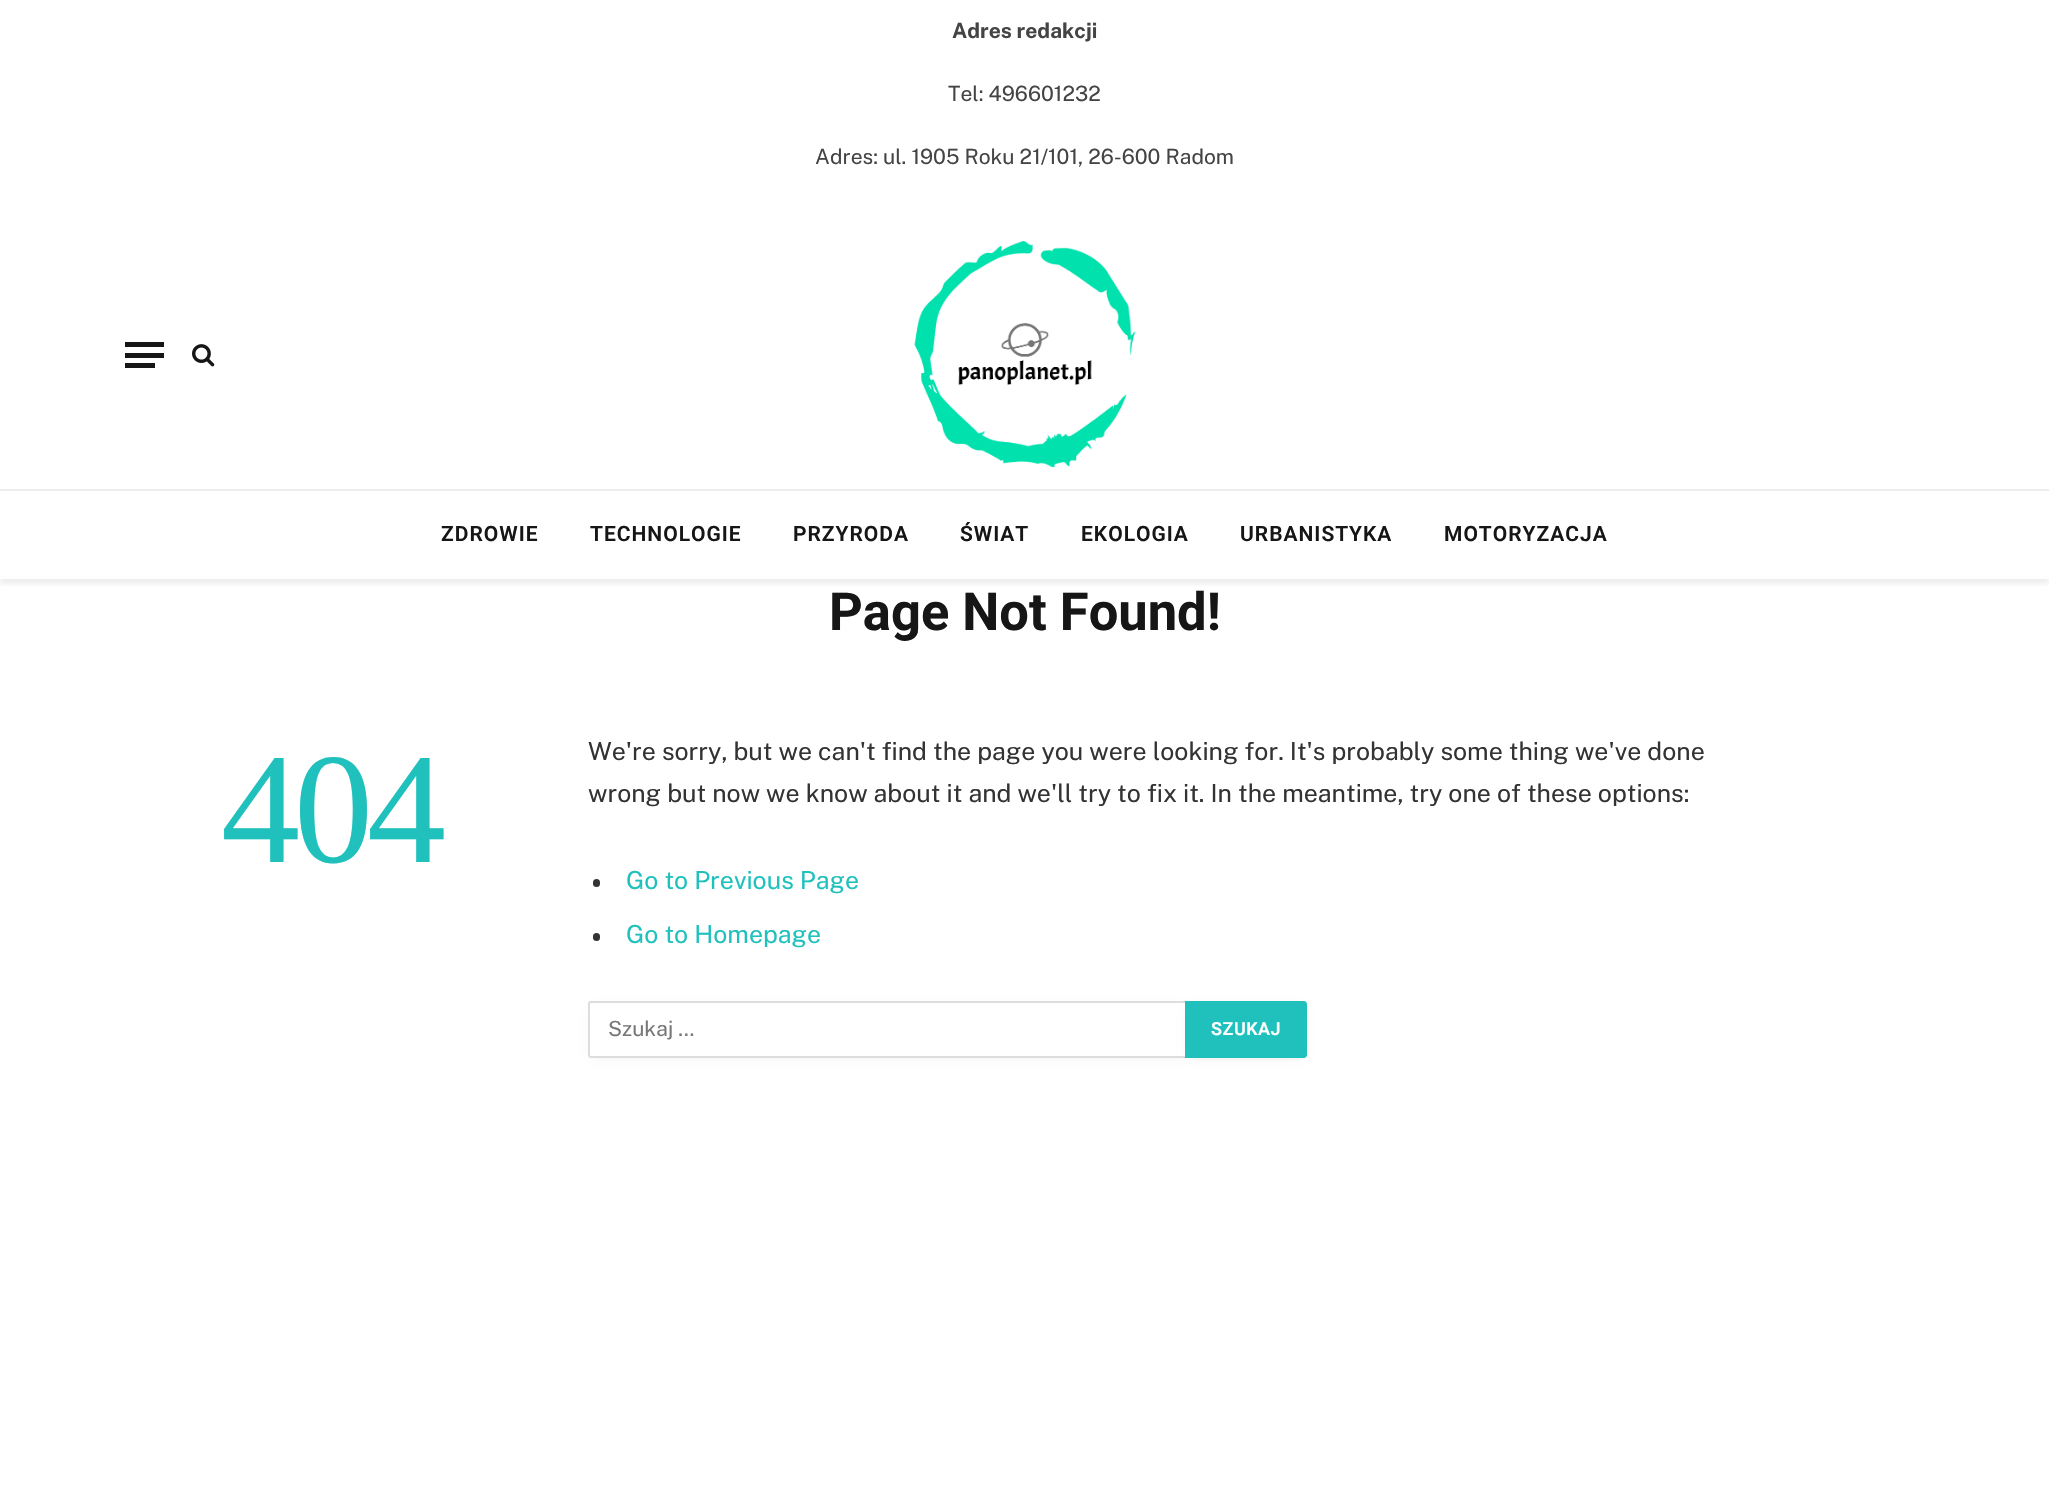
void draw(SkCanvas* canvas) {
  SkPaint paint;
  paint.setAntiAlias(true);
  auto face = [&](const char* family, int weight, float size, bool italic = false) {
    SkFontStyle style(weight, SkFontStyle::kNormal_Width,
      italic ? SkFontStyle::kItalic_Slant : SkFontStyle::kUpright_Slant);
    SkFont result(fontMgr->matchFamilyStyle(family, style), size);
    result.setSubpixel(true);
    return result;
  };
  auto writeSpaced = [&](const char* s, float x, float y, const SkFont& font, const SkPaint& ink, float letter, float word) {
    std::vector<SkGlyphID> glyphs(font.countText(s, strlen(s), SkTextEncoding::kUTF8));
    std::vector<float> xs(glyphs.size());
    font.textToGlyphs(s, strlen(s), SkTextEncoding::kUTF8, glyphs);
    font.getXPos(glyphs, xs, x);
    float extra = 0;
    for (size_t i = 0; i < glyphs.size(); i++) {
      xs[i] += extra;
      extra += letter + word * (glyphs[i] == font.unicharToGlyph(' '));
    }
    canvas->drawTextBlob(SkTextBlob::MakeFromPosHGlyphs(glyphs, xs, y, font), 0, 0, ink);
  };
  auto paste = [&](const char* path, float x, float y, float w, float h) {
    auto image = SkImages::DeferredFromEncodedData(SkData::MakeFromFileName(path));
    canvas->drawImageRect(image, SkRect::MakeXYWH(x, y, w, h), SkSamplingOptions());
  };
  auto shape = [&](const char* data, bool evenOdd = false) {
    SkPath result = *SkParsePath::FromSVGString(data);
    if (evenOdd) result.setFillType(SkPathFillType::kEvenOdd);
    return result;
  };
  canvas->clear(0xffffffff);
  canvas->save();
  canvas->clipRect(SkRect::MakeXYWH(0, 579, 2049, 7));
  paint.setColor(0x12000000);
  paint.setMaskFilter(SkMaskFilter::MakeBlur(kNormal_SkBlurStyle, 3));
  canvas->drawRect(SkRect::MakeXYWH(0, 224, 2049, 360), paint);
  paint.setMaskFilter(nullptr);
  canvas->restore();
  {
    const struct { float x, y, w, h; SkColor color; } items[] = {
      {125, 363, 30, 5, 0xff161616},
      {125, 342, 39, 5, 0xff161616},
      {125, 353, 39, 5, 0xff161616},
    };
    for (auto [x, y, w, h, color] : items) {
      paint.setColor(color);
      canvas->drawRect(SkRect::MakeXYWH(x, y, w, h), paint);
    }
  }
  paste("img/1.png", 192, 344, 23, 23);
  paste("img/2.png", 914, 240, 222, 228);
  paint.setColor(0xffededed);
  canvas->drawRect(SkRect::MakeXYWH(0, 489, 2049, 2), paint);
  paint.setColor(0xff333333);
  canvas->drawRoundRect(SkRect::MakeXYWH(593, 879, 7, 8), 3.5f, 3.5f, paint);
  canvas->drawRoundRect(SkRect::MakeXYWH(593, 933, 7, 8), 3.5f, 3.5f, paint);
  paint.setColor(0x1a000000);
  paint.setMaskFilter(SkMaskFilter::MakeBlur(kNormal_SkBlurStyle, 5));
  canvas->drawRect(SkRect::MakeXYWH(594, 1010, 588, 45), paint);
  paint.setMaskFilter(nullptr);
  paint.setColor(0xffffffff);
  canvas->drawRoundRect(SkRect::MakeXYWH(589, 1002, 598, 55), 2, 2, paint);
  paint.setStroke(true);
  paint.setStrokeWidth(2);
  paint.setColor(0xffdddddd);
  canvas->drawRoundRect(SkRect::MakeXYWH(589, 1002, 598, 55), 2, 2, paint);
  paint.setStroke(false);
  paint.setColor(0x29000000);
  paint.setMaskFilter(SkMaskFilter::MakeBlur(kNormal_SkBlurStyle, 5));
  canvas->drawRect(SkRect::MakeXYWH(1191, 1010, 110, 45), paint);
  paint.setMaskFilter(nullptr);
  paint.setColor(0xff20c1bd);
  canvas->drawPath(shape("M1185 1001H1304C1305.5 1001 1307 1002.5 1307 1004V1055C1307 1056.5 1305.5 1058 1304 1058H1185Z"), paint);
  auto f0 = face("Public Sans", 700, 21);
  paint.setColor(0xff444444);
  canvas->drawString("Adres redakcji", 952, 38, f0, paint);
  auto f1 = face("Public Sans", 400, 21);
  canvas->drawString("Tel: 496601232", 948, 101, f1, paint);
  canvas->drawString("Adres: ul. 1905 Roku 21/101, 26-600 Radom", 815, 164, f1, paint);
  auto f2 = face("Roboto", 600, 21);
  paint.setColor(0xff161616);
  {
    const struct { const char* s; float x, y; } items[] = {
      {"ZDROWIE", 441, 541},
      {"TECHNOLOGIE", 590, 541},
      {"PRZYRODA", 793, 541},
      {"ŚWIAT", 960, 541},
      {"EKOLOGIA", 1081, 541},
      {"URBANISTYKA", 1240, 541},
      {"MOTORYZACJA", 1444, 541},
    };
    for (auto [s, x, y] : items) {
      writeSpaced(s, x, y, f2, paint, 1, 0);
    }
  }
  auto f3 = face("Roboto", 700, 52.5f);
  canvas->drawString("Page Not Found!", 829, 630, f3, paint);
  auto f4 = face("Liberation Serif", 400, 158);
  paint.setColor(0xff20c1bd);
  writeSpaced("404", 221, 862, f4, paint, -6, 0);
  auto f5 = face("Public Sans", 400, 24.9f);
  paint.setColor(0xff333333);
  canvas->drawString("We're sorry, but we can't find the page you were looking for. It's probably some thing we've done", 588, 760, f5, paint);
  canvas->drawString("wrong but now we know about it and we'll try to fix it. In the meantime, try one of these options:", 588, 802, f5, paint);
  paint.setColor(0xff20c1bd);
  canvas->drawString("Go to Previous Page", 626, 889, f5, paint);
  canvas->drawString("Go to Homepage", 626, 943, f5, paint);
  paint.setColor(0xff777777);
  canvas->drawString("Szukaj …", 608, 1036, f1, paint);
  auto f6 = face("Roboto", 600, 18);
  paint.setColor(0xffffffff);
  writeSpaced("SZUKAJ", 1211, 1035, f6, paint, 0.5f, 0);
}
